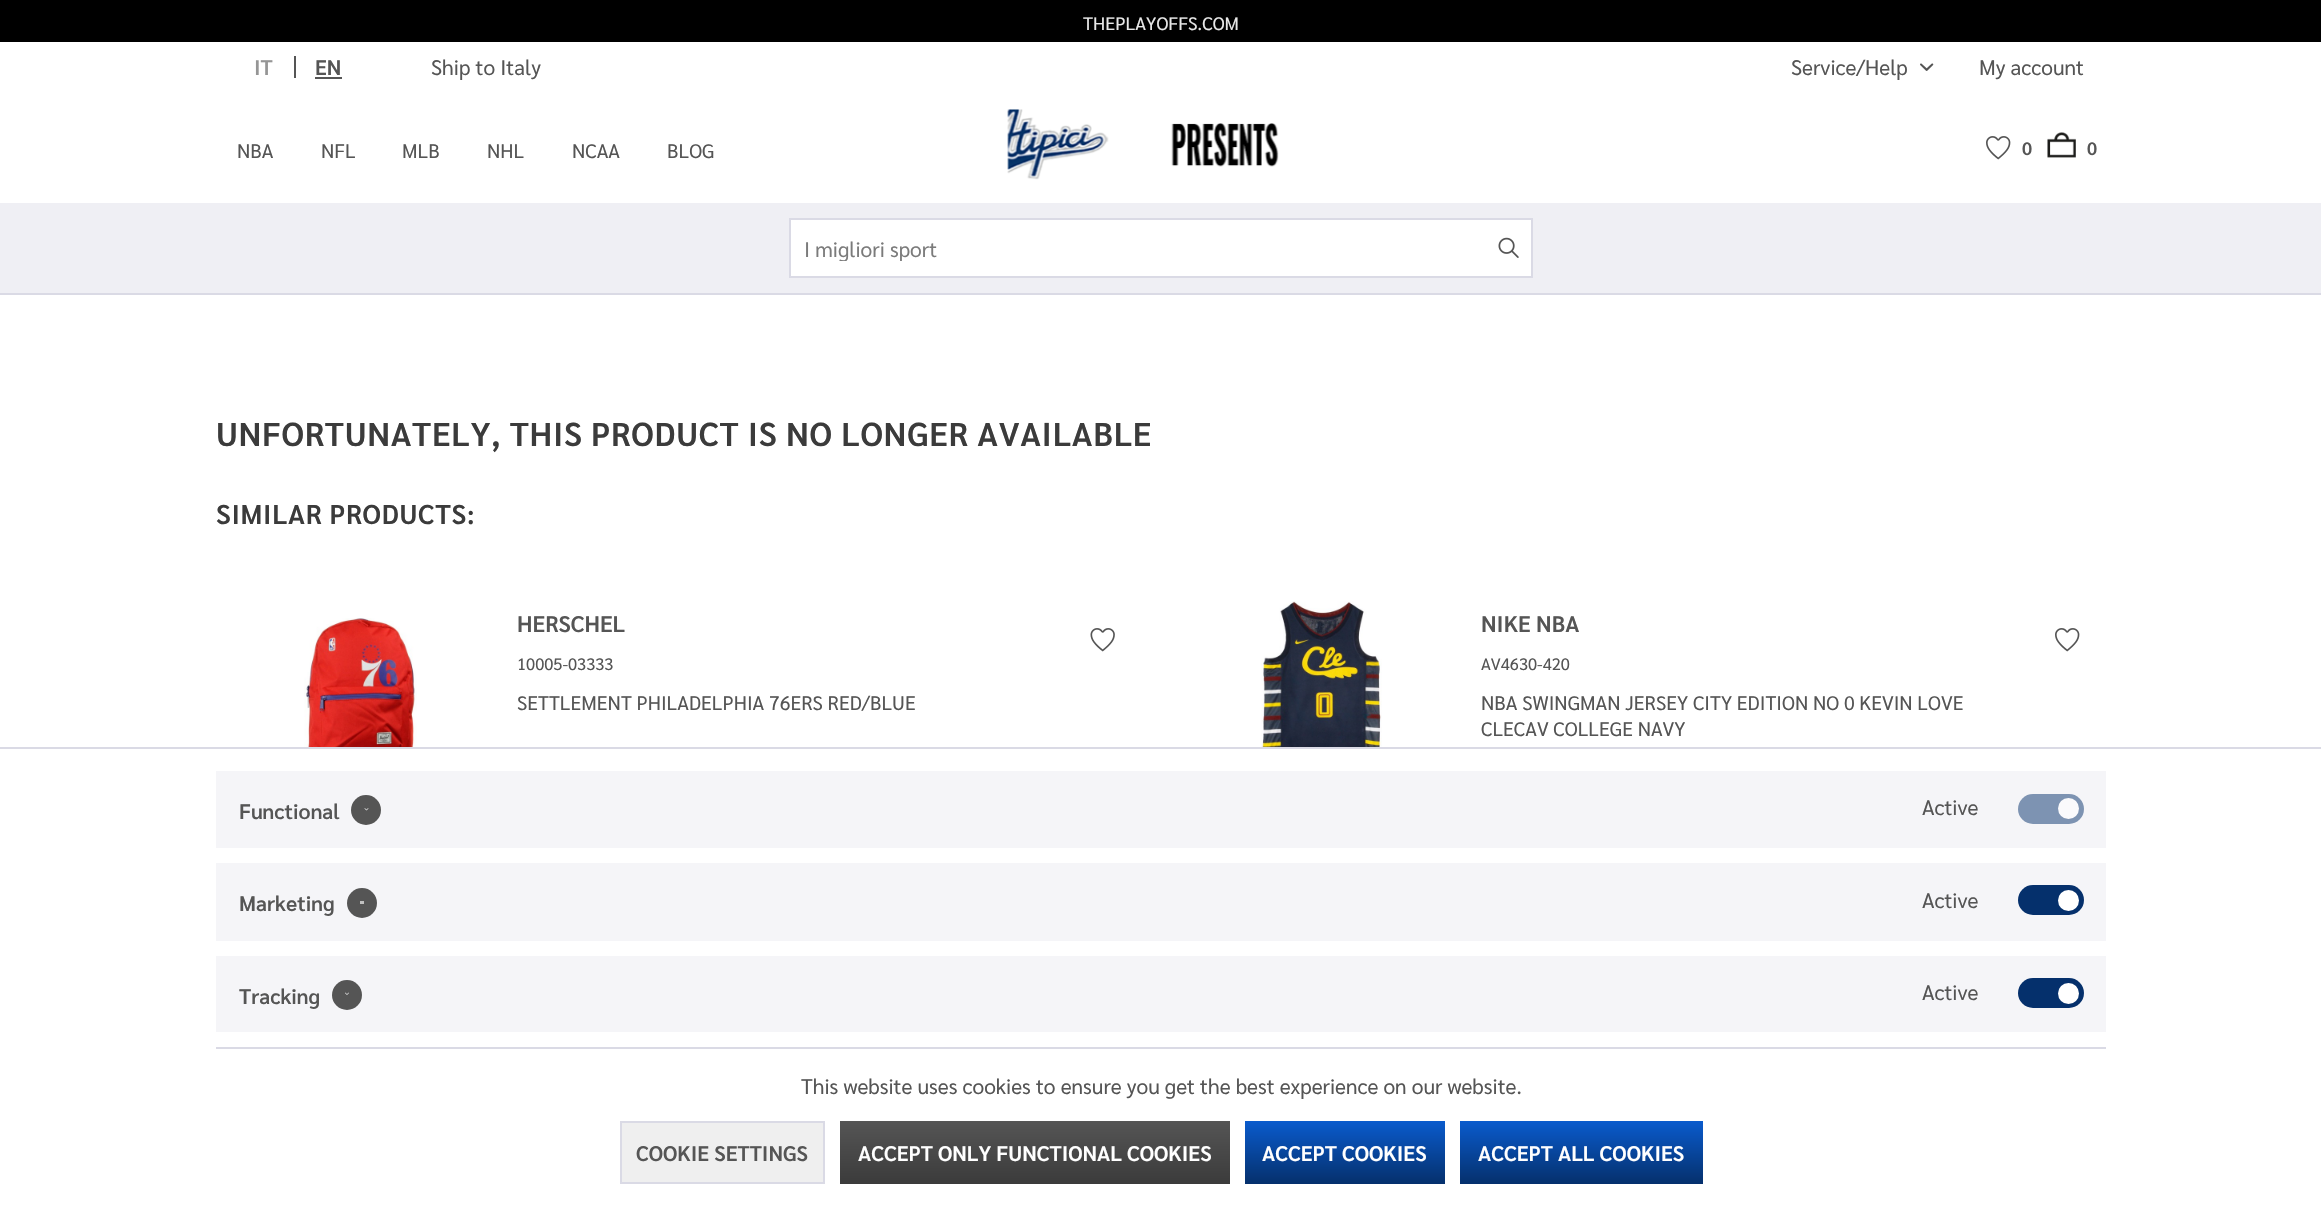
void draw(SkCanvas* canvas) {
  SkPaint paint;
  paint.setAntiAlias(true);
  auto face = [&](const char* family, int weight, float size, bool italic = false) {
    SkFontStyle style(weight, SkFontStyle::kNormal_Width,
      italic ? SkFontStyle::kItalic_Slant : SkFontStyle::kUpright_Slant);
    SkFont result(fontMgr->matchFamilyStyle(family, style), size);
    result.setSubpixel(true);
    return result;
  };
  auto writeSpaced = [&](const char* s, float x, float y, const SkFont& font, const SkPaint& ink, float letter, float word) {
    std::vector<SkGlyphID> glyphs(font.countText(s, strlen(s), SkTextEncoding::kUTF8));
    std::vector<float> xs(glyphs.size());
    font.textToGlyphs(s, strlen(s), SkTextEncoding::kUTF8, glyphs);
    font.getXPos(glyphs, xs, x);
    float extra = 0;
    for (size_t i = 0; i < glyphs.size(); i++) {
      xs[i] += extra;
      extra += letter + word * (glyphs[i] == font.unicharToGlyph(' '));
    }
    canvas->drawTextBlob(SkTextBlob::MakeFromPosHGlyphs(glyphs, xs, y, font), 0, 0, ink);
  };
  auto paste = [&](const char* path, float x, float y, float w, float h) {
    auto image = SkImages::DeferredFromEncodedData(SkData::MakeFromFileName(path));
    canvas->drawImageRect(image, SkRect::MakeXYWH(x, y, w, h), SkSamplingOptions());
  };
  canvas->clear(0xffffffff);
  {
    const struct { float x, y, w, h; SkColor color; } items[] = {
      {0, 293, 2321, 2, 0xffdadae5},
      {0, 0, 2321, 42, 0xff000000},
      {294, 56, 2, 22, 0xff555555},
      {315, 77, 27, 2, 0xff555555},
    };
    for (auto [x, y, w, h, color] : items) {
      paint.setColor(color);
      canvas->drawRect(SkRect::MakeXYWH(x, y, w, h), paint);
    }
  }
  paste("img/1.png", 1920, 63, 14, 8);
  paste("img/2.png", 1007, 109, 272, 71);
  paste("img/3.png", 1986, 136, 25, 24);
  paste("img/4.png", 2047, 132, 29, 26);
  paint.setColor(0xffefeff4);
  canvas->drawRect(SkRect::MakeXYWH(0, 203, 2321, 90), paint);
  paint.setColor(0xffffffff);
  canvas->drawRect(SkRect::MakeXYWH(790, 219, 742, 58), paint);
  paint.setStroke(true);
  paint.setStrokeWidth(2);
  paint.setColor(0xffdadae5);
  canvas->drawRect(SkRect::MakeXYWH(790, 219, 742, 58), paint);
  paste("img/5.png", 1498, 237, 21, 21);
  paste("img/6.png", 304, 618, 113, 129);
  paste("img/7.png", 1090, 628, 25, 24);
  paste("img/8.png", 1261, 601, 121, 146);
  paste("img/3.png", 2055, 628, 25, 24);
  paint.setStroke(false);
  {
    const struct { float x, y, w, h; SkColor color; } items[] = {
      {0, 747, 2321, 2, 0xffdadae5},
      {216, 1047, 1890, 2, 0xffdadae5},
      {216, 771, 1890, 77, 0xfff5f5f8},
    };
    for (auto [x, y, w, h, color] : items) {
      paint.setColor(color);
      canvas->drawRect(SkRect::MakeXYWH(x, y, w, h), paint);
    }
  }
  paint.setColor(0xff555555);
  canvas->drawCircle(366, 810, 15, paint);
  paste("img/9.png", 364, 808, 5, 3);
  paint.setColor(0xff7d93b2);
  canvas->drawRoundRect(SkRect::MakeXYWH(2018, 794, 66, 30), 15, 15, paint);
  paint.setColor(0xfffafafc);
  canvas->drawCircle(2068.5f, 808.5f, 10.5f, paint);
  paint.setColor(0xfff5f5f8);
  canvas->drawRect(SkRect::MakeXYWH(216, 863, 1890, 78), paint);
  paint.setColor(0xff555555);
  canvas->drawCircle(362, 903, 15, paint);
  paint.setColor(0xffc0c0c0);
  canvas->drawRect(SkRect::MakeXYWH(360, 901, 4, 3), paint);
  paint.setColor(0xff05306c);
  canvas->drawRoundRect(SkRect::MakeXYWH(2018, 885, 66, 30), 15, 15, paint);
  paint.setColor(0xffffffff);
  canvas->drawCircle(2068.5f, 900.5f, 10.5f, paint);
  paint.setColor(0xfff5f5f8);
  canvas->drawRect(SkRect::MakeXYWH(216, 956, 1890, 76), paint);
  paint.setColor(0xff555555);
  canvas->drawCircle(347, 995, 15, paint);
  paste("img/10.png", 345, 992, 4, 3);
  paint.setColor(0xff05306c);
  canvas->drawRoundRect(SkRect::MakeXYWH(2018, 978, 66, 30), 15, 15, paint);
  paint.setColor(0xffffffff);
  canvas->drawCircle(2068.5f, 993.5f, 10.5f, paint);
  paint.setColor(0xffefefef);
  canvas->drawRect(SkRect::MakeXYWH(621, 1122, 203, 61), paint);
  paint.setStroke(true);
  paint.setColor(0xffdadae5);
  canvas->drawRect(SkRect::MakeXYWH(621, 1122, 203, 61), paint);
  paint.setStroke(false);
  {
    const SkColor colors[] = {0xff555555, 0xff3b3b3b};
    const float stops[] = {0, 1};
    const SkPoint ends[] = {{1035, 1121}, {1035, 1184}};
    paint.setShader(SkGradientShader::MakeLinear(ends, colors, stops, 2, SkTileMode::kClamp));
    paint.setAlpha(255);
  }
  canvas->drawRect(SkRect::MakeXYWH(840, 1121, 390, 63), paint);
  {
    const SkColor colors[] = {0xff0a5bcd, 0xff05306c};
    const float stops[] = {0, 1};
    const SkPoint ends[] = {{1345, 1121}, {1345, 1184}};
    paint.setShader(SkGradientShader::MakeLinear(ends, colors, stops, 2, SkTileMode::kClamp));
    paint.setAlpha(255);
  }
  canvas->drawRect(SkRect::MakeXYWH(1245, 1121, 200, 63), paint);
  {
    const SkColor colors[] = {0xff0a5bcd, 0xff05306c};
    const float stops[] = {0, 1};
    const SkPoint ends[] = {{1581, 1121}, {1581, 1184}};
    paint.setShader(SkGradientShader::MakeLinear(ends, colors, stops, 2, SkTileMode::kClamp));
    paint.setAlpha(255);
  }
  canvas->drawRect(SkRect::MakeXYWH(1460, 1121, 243, 63), paint);
  auto f0 = face("Sarabun", 400, 18);
  paint.setShader(nullptr);
  paint.setColor(0xffe8e8e8);
  canvas->drawString("THEPLAYOFFS.COM", 1083, 30, f0, paint);
  auto f1 = face("Sarabun", 600, 21);
  paint.setColor(0xff959595);
  canvas->drawString("IT", 254, 75, f1, paint);
  paint.setColor(0xff555555);
  canvas->drawString("EN", 315, 75, f1, paint);
  auto f2 = face("Sarabun", 400, 21);
  {
    const struct { const char* s; float x, y; } items[] = {
      {"Ship to Italy", 431, 75},
      {"Service/Help", 1791, 75},
      {"My account", 1979, 75},
    };
    for (auto [s, x, y] : items) {
      canvas->drawString(s, x, y, f2, paint);
    }
  }
  auto f3 = face("Sarabun", 400, 19.5f);
  {
    const struct { const char* s; float x, y; } items[] = {
      {"NBA", 237, 158},
      {"NFL", 321, 158},
      {"MLB", 402, 158},
      {"NHL", 487, 158},
      {"NCAA", 572, 158},
      {"BLOG", 667, 158},
    };
    for (auto [s, x, y] : items) {
      canvas->drawString(s, x, y, f3, paint);
    }
  }
  auto f4 = face("Sarabun", 600, 18);
  canvas->drawString("0", 2022, 155, f4, paint);
  canvas->drawString("0", 2087, 155, f4, paint);
  canvas->save();
  canvas->clipRect(SkRect::MakeXYWH(804, 234, 665, 27));
  paint.setColor(0xff7b7b7b);
  canvas->drawString("I migliori sport", 804, 257, f2, paint);
  canvas->restore();
  auto f5 = face("Sarabun", 600, 33);
  paint.setColor(0xff3b3b3b);
  writeSpaced("UNFORTUNATELY, THIS PRODUCT IS NO LONGER AVAILABLE", 216, 446, f5, paint, 0.7f, 0);
  auto f6 = face("Sarabun", 600, 27);
  writeSpaced("SIMILAR PRODUCTS:", 216, 524, f6, paint, 0.7f, 0);
  auto f7 = face("Sarabun", 600, 22.5f);
  paint.setColor(0xff555555);
  canvas->drawString("HERSCHEL", 517, 632, f7, paint);
  auto f8 = face("Sarabun", 400, 16.5f);
  canvas->drawString("10005-03333", 517, 670, f8, paint);
  canvas->drawString("SETTLEMENT PHILADELPHIA 76ERS RED/BLUE", 517, 710, f3, paint);
  canvas->drawString("NIKE NBA", 1481, 632, f7, paint);
  canvas->drawString("AV4630-420", 1481, 670, f8, paint);
  canvas->drawString("NBA SWINGMAN JERSEY CITY EDITION NO 0 KEVIN LOVE", 1481, 710, f3, paint);
  canvas->drawString("CLECAV COLLEGE NAVY", 1481, 736, f3, paint);
  canvas->drawString("Functional", 239, 819, f1, paint);
  canvas->drawString("Active", 1922, 815, f2, paint);
  canvas->drawString("Marketing", 239, 911, f1, paint);
  canvas->drawString("Active", 1922, 908, f2, paint);
  canvas->drawString("Tracking", 239, 1004, f1, paint);
  canvas->drawString("Active", 1922, 1000, f2, paint);
  canvas->drawString("This website uses cookies to ensure you get the best experience on our website.", 801, 1094, f2, paint);
  canvas->drawString("COOKIE SETTINGS", 636, 1161, f1, paint);
  paint.setColor(0xffffffff);
  {
    const struct { const char* s; float x, y; } items[] = {
      {"ACCEPT ONLY FUNCTIONAL COOKIES", 858, 1161},
      {"ACCEPT COOKIES", 1262, 1161},
      {"ACCEPT ALL COOKIES", 1478, 1161},
    };
    for (auto [s, x, y] : items) {
      canvas->drawString(s, x, y, f1, paint);
    }
  }
}
